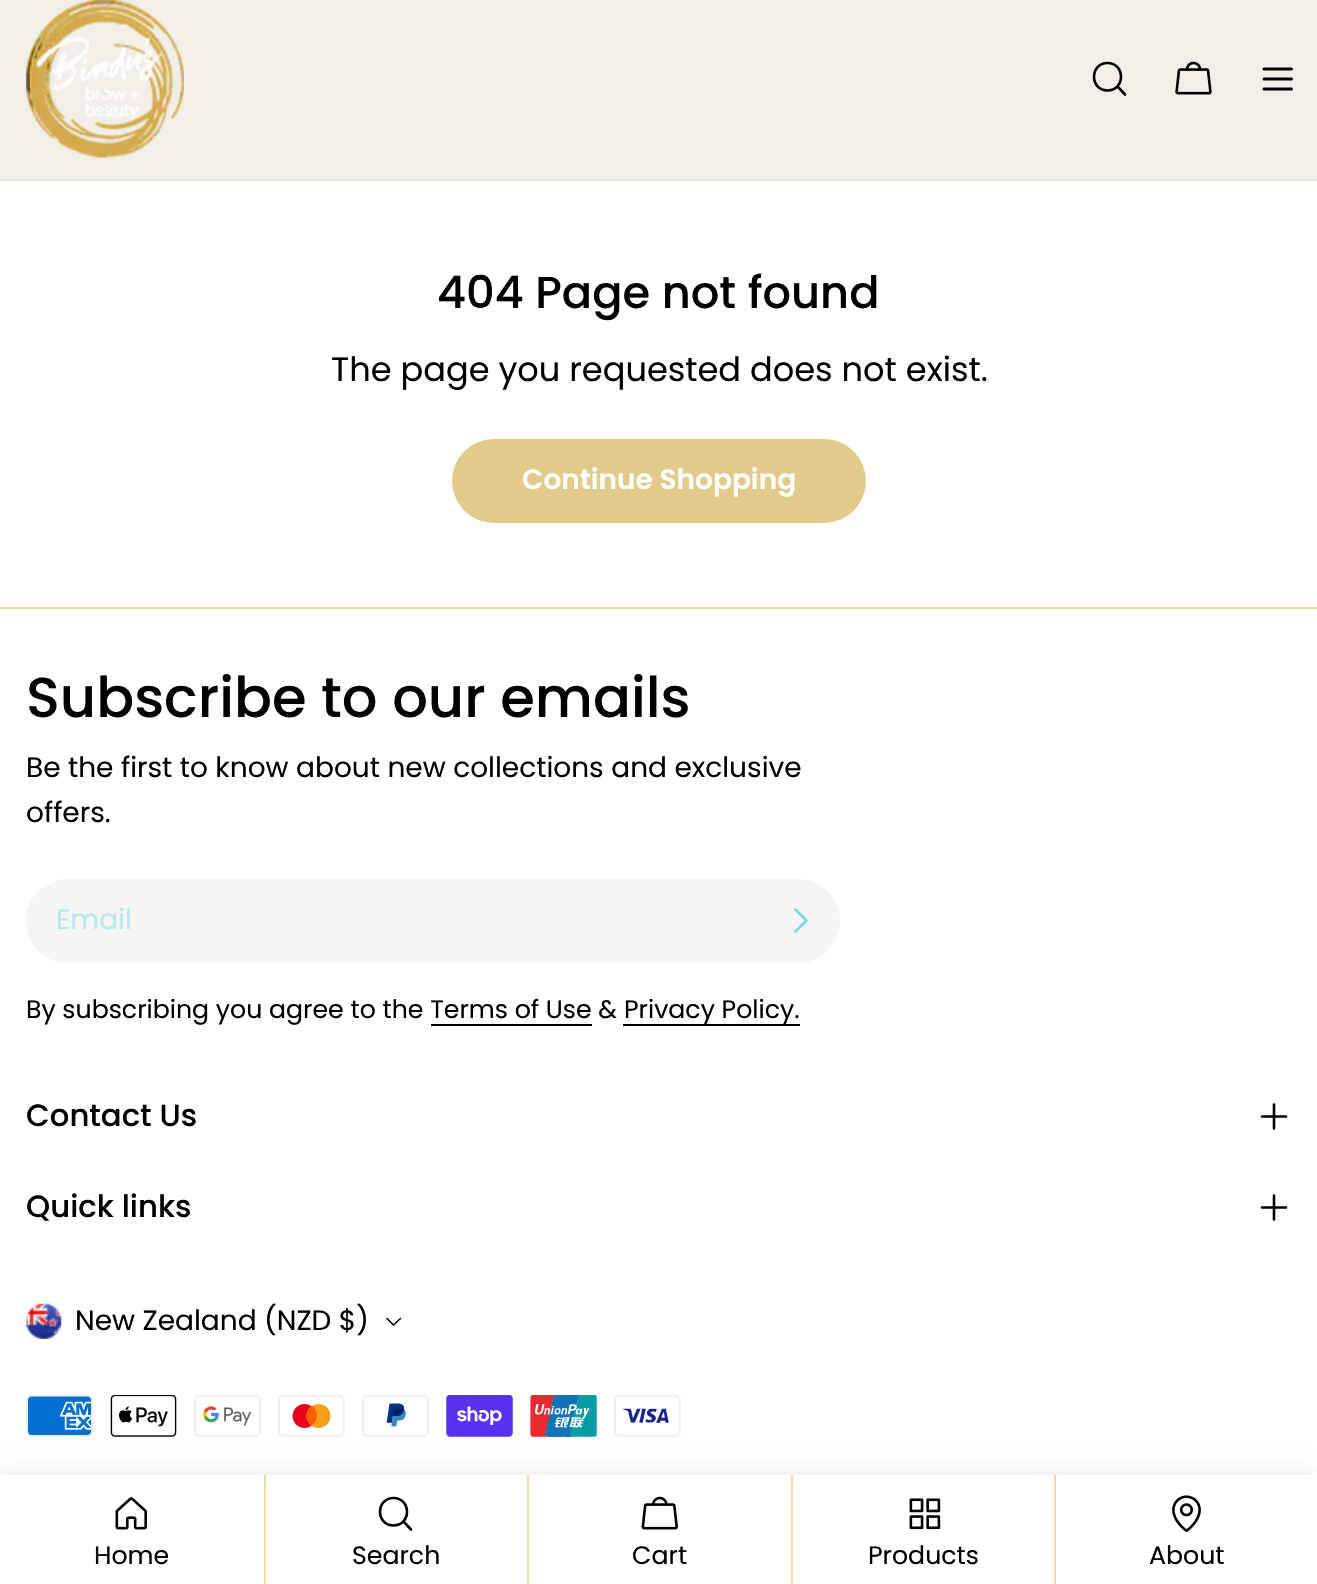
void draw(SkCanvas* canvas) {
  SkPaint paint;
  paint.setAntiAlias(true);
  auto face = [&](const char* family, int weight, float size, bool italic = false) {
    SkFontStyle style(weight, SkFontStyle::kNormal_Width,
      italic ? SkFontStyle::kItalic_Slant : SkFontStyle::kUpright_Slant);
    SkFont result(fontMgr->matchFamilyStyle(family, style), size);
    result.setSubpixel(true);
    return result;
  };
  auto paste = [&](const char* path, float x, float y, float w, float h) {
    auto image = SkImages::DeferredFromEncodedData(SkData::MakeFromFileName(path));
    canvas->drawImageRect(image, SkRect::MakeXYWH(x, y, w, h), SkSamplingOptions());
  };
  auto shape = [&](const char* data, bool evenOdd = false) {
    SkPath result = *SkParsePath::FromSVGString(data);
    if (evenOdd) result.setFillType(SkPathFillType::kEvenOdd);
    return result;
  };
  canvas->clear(0xffffffff);
  paint.setColor(0xffe6e6e6);
  canvas->drawRect(SkRect::MakeXYWH(0, 179, 1317, 2), paint);
  paint.setColor(0xfff2efe8);
  canvas->drawRect(SkRect::MakeXYWH(0, 0, 1317, 179), paint);
  paste("img/1.png", 26, 0, 158, 158);
  paint.setStroke(true);
  paint.setStrokeWidth(2.6f);
  paint.setStrokeCap(SkPaint::kRound_Cap);
  paint.setStrokeJoin(SkPaint::kRound_Join);
  paint.setColor(0xff000000);
  canvas->drawPath(shape("M1107.5 90.5C1125.5 90.5 1125.5 63 1107.5 63C1089.5 63 1089.5 90.5 1107.5 90.5ZM1117.5 86.5L1125 94.5"), paint);
  paste("img/2.png", 1175, 61, 37, 34);
  paint.setStrokeWidth(3);
  canvas->drawPath(shape("M1264 79H1291.5M1264 69H1291.5M1264 89H1291.5"), paint);
  paint.setStroke(false);
  paint.setColor(0xffe2ca8b);
  canvas->drawRoundRect(SkRect::MakeXYWH(452, 439, 414, 84), 42, 42, paint);
  paint.setColor(0xffefdaa4);
  canvas->drawRect(SkRect::MakeXYWH(0, 607, 1317, 2), paint);
  paint.setColor(0xfff5f5f5);
  canvas->drawRoundRect(SkRect::MakeXYWH(27, 880, 812, 82), 41, 41, paint);
  paint.setStroke(true);
  paint.setStrokeWidth(2);
  paint.setStrokeCap(SkPaint::kButt_Cap);
  paint.setStrokeJoin(SkPaint::kMiter_Join);
  canvas->drawRoundRect(SkRect::MakeXYWH(27, 880, 812, 82), 41, 41, paint);
  paint.setStrokeWidth(2.6f);
  paint.setStrokeCap(SkPaint::kRound_Cap);
  paint.setStrokeJoin(SkPaint::kRound_Join);
  paint.setColor(0xff7bd9e6);
  canvas->drawPath(shape("M795.5 909.5L806.5 920.5L795.5 931.5"), paint);
  paint.setStroke(false);
  paint.setColor(0xff000000);
  canvas->drawRect(SkRect::MakeXYWH(623, 1024, 177, 2), paint);
  canvas->drawRect(SkRect::MakeXYWH(431, 1024, 161, 2), paint);
  paint.setStroke(true);
  canvas->drawPath(shape("M1262 1116.5H1286M1274 1104.5V1128.5"), paint);
  canvas->drawPath(shape("M1262 1207.5H1286M1274 1195.5V1219.5"), paint);
  paste("img/3.png", 26, 1303, 36, 36);
  paint.setStrokeWidth(1.6f);
  canvas->drawPath(shape("M400.5 1318.5L393.5 1325L387 1318.5"), paint);
  paste("img/4.png", 26, 1395, 67, 42);
  paste("img/5.png", 110, 1395, 67, 42);
  paste("img/6.png", 194, 1395, 67, 42);
  paste("img/7.png", 278, 1395, 67, 42);
  paste("img/8.png", 362, 1395, 67, 42);
  paste("img/9.png", 446, 1395, 67, 42);
  paste("img/10.png", 530, 1395, 67, 42);
  paste("img/11.png", 614, 1395, 67, 42);
  paint.setStroke(false);
  paint.setColor(0x14000000);
  paint.setMaskFilter(SkMaskFilter::MakeBlur(kNormal_SkBlurStyle, 9));
  canvas->drawRect(SkRect::MakeXYWH(-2, 1472, 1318, 110), paint);
  paint.setMaskFilter(nullptr);
  paint.setColor(0xffffffff);
  canvas->drawRect(SkRect::MakeXYWH(0, 1475, 1317, 109), paint);
  paste("img/12.png", 115, 1497, 32, 33);
  paint.setColor(0xffefdaa4);
  canvas->drawRect(SkRect::MakeXYWH(264, 1475, 2, 109), paint);
  paint.setStroke(true);
  paint.setStrokeWidth(2.6f);
  paint.setColor(0xff000000);
  canvas->drawPath(shape("M393.5 1525.5C411.5 1525.5 411.5 1498 393.5 1498C375.5 1498 375.5 1525.5 393.5 1525.5ZM403.5 1521.5L411 1529.5"), paint);
  paint.setStroke(false);
  paint.setColor(0xffefdaa4);
  canvas->drawRect(SkRect::MakeXYWH(527, 1475, 2, 109), paint);
  paste("img/13.png", 641, 1496, 37, 34);
  canvas->drawRect(SkRect::MakeXYWH(791, 1475, 2, 109), paint);
  paste("img/14.png", 909, 1498, 32, 32);
  canvas->drawRect(SkRect::MakeXYWH(1054, 1475, 2, 109), paint);
  paste("img/15.png", 1172, 1495, 29, 38);
  auto f0 = face("Poppins", 500, 44.75f);
  paint.setColor(0xff000000);
  canvas->drawString("404 Page not found", 437, 308, f0, paint);
  auto f1 = face("Poppins", 400, 33.6f);
  canvas->drawString("The page you requested does not exist.", 331, 381, f1, paint);
  auto f2 = face("Poppins", 600, 28);
  paint.setColor(0xffffffff);
  canvas->drawString("Continue Shopping", 522, 489, f2, paint);
  auto f3 = face("Poppins", 500, 56);
  paint.setColor(0xff000000);
  canvas->drawString("Subscribe to our emails", 26, 717, f3, paint);
  auto f4 = face("Poppins", 400, 28);
  canvas->drawString("Be the first to know about new collections and exclusive", 26, 777, f4, paint);
  canvas->drawString("offers.", 26, 822, f4, paint);
  paint.setColor(0xffb8e7ee);
  canvas->drawString("Email", 56, 929, f4, paint);
  auto f5 = face("Poppins", 400, 25.2f);
  paint.setColor(0xff000000);
  canvas->drawString("By subscribing you agree to the Terms of Use &", 26, 1018, f5, paint);
  canvas->drawString("Privacy Policy.", 624, 1018, f5, paint);
  auto f6 = face("Poppins", 500, 30.75f);
  canvas->drawString("Contact Us", 26, 1126, f6, paint);
  canvas->drawString("Quick links", 26, 1217, f6, paint);
  canvas->drawString("New Zealand (NZD $)", 75, 1330, f4, paint);
  {
    const struct { const char* s; float x, y; } items[] = {
      {"Home", 94, 1564},
      {"Search", 352, 1564},
      {"Cart", 632, 1564},
      {"Products", 868, 1564},
      {"About", 1149, 1564},
    };
    for (auto [s, x, y] : items) {
      canvas->drawString(s, x, y, f5, paint);
    }
  }
}
